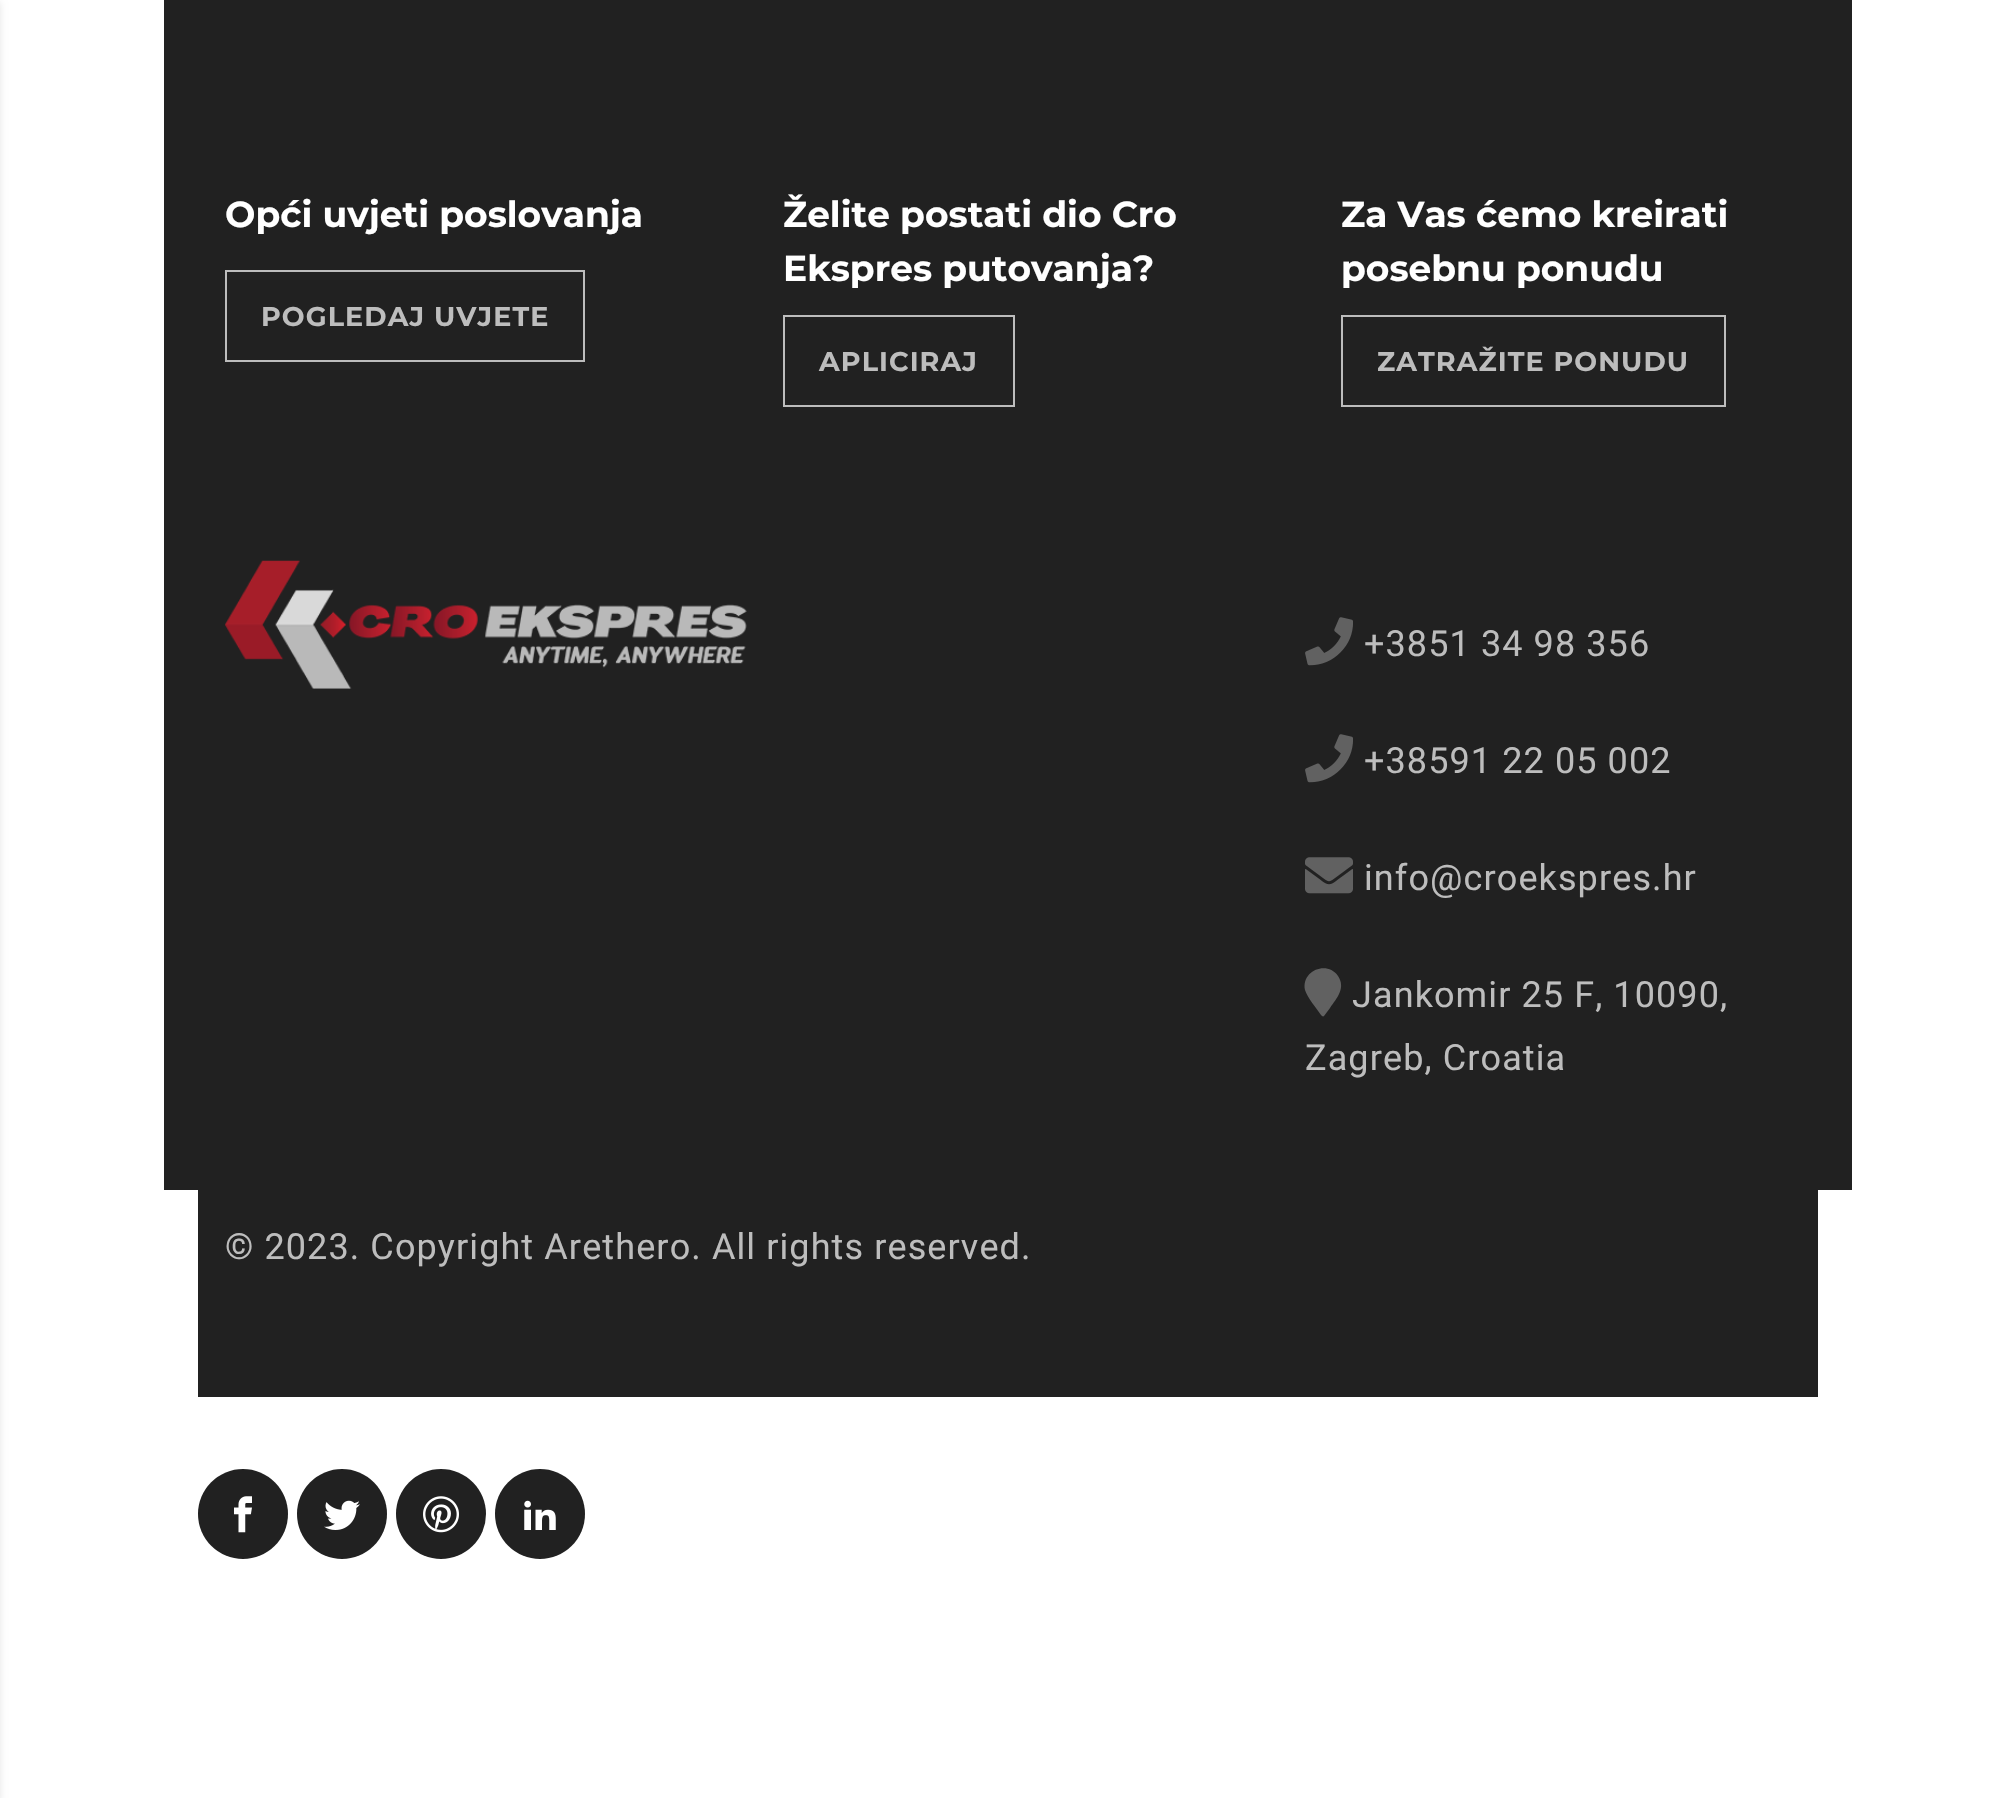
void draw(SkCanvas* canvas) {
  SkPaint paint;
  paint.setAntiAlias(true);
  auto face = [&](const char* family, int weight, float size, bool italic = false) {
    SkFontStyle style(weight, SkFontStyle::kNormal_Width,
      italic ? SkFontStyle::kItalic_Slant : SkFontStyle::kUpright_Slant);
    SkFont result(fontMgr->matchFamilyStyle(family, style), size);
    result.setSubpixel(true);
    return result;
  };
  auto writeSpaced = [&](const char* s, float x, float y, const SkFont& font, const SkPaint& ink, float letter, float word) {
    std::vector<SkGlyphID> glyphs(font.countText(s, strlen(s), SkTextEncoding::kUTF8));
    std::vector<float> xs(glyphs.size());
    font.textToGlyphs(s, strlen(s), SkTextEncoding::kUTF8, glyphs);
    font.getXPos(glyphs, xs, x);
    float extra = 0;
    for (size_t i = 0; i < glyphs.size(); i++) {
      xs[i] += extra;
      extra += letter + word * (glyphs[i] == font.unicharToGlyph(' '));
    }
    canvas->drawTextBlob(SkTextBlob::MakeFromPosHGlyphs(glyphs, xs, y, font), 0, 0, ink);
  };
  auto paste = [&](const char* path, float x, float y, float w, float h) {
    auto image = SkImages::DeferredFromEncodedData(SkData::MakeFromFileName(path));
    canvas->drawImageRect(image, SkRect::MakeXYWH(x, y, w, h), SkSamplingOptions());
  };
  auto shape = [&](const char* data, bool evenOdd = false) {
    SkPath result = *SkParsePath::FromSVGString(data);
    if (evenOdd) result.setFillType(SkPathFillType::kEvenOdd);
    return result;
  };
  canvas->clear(0xffffffff);
  paint.setColor(0x1a000000);
  paint.setMaskFilter(SkMaskFilter::MakeBlur(kNormal_SkBlurStyle, 3.5f));
  canvas->drawRect(SkRect::MakeXYWH(-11, 2, 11, 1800), paint);
  paint.setMaskFilter(nullptr);
  paint.setColor(0xff212121);
  canvas->drawRect(SkRect::MakeXYWH(164, 0, 1688, 1190), paint);
  paint.setStroke(true);
  paint.setStrokeWidth(2);
  paint.setColor(0xffbdbdbd);
  canvas->drawRect(SkRect::MakeXYWH(226, 271, 358, 90), paint);
  canvas->drawRect(SkRect::MakeXYWH(784, 316, 230, 90), paint);
  canvas->drawRect(SkRect::MakeXYWH(1342, 316, 383, 90), paint);
  paste("img/1.png", 225, 560, 522, 129);
  paste("img/2.png", 1305, 617, 48, 49);
  paste("img/2.png", 1305, 734, 48, 49);
  paste("img/3.png", 1305, 857, 48, 37);
  paint.setStroke(false);
  paint.setColor(0xff616161);
  canvas->drawPath(shape("M1321 1015C1317 1009 1307 997 1305 990C1301 971 1327 960 1338 976C1346 988 1337 998 1330 1008L1324 1016C1323 1017 1322 1016 1321 1015Z"), paint);
  paint.setColor(0xff212121);
  canvas->drawRect(SkRect::MakeXYWH(198, 1190, 1620, 207), paint);
  canvas->drawCircle(243, 1514, 45, paint);
  paste("img/4.png", 234, 1496, 18, 37);
  canvas->drawCircle(342, 1514, 45, paint);
  paste("img/5.png", 324, 1500, 36, 30);
  canvas->drawCircle(441, 1514, 45, paint);
  paste("img/6.png", 423, 1496, 36, 37);
  canvas->drawCircle(540, 1514, 45, paint);
  paste("img/7.png", 524, 1500, 32, 30);
  auto f0 = face("Montserrat", 700, 36);
  paint.setColor(0xffffffff);
  canvas->drawString("Opći uvjeti poslovanja", 225, 227, f0, paint);
  auto f1 = face("Montserrat", 700, 27);
  paint.setColor(0xffbdbdbd);
  writeSpaced("POGLEDAJ UVJETE", 261, 326, f1, paint, 1.1f, 0);
  paint.setColor(0xffffffff);
  canvas->drawString("Želite postati dio Cro", 783, 227, f0, paint);
  canvas->drawString("Ekspres putovanja?", 783, 281, f0, paint);
  paint.setColor(0xffbdbdbd);
  writeSpaced("APLICIRAJ", 819, 371, f1, paint, 1.1f, 0);
  paint.setColor(0xffffffff);
  canvas->drawString("Za Vas ćemo kreirati", 1341, 227, f0, paint);
  canvas->drawString("posebnu ponudu", 1341, 281, f0, paint);
  paint.setColor(0xffbdbdbd);
  writeSpaced("ZATRAŽITE PONUDU", 1377, 371, f1, paint, 1.1f, 0);
  auto f2 = face("Roboto", 400, 36);
  {
    const struct { const char* s; float x, y; } items[] = {
      {"+3851 34 98 356", 1364, 656},
      {"+38591 22 05 002", 1364, 773},
      {"info@croekspres.hr", 1364, 890},
      {"Jankomir 25 F, 10090,", 1352, 1007},
      {"Zagreb, Croatia", 1305, 1070},
      {"© 2023. Copyright Arethero. All rights reserved.", 225, 1259},
    };
    for (auto [s, x, y] : items) {
      writeSpaced(s, x, y, f2, paint, 1.1f, 0);
    }
  }
}
